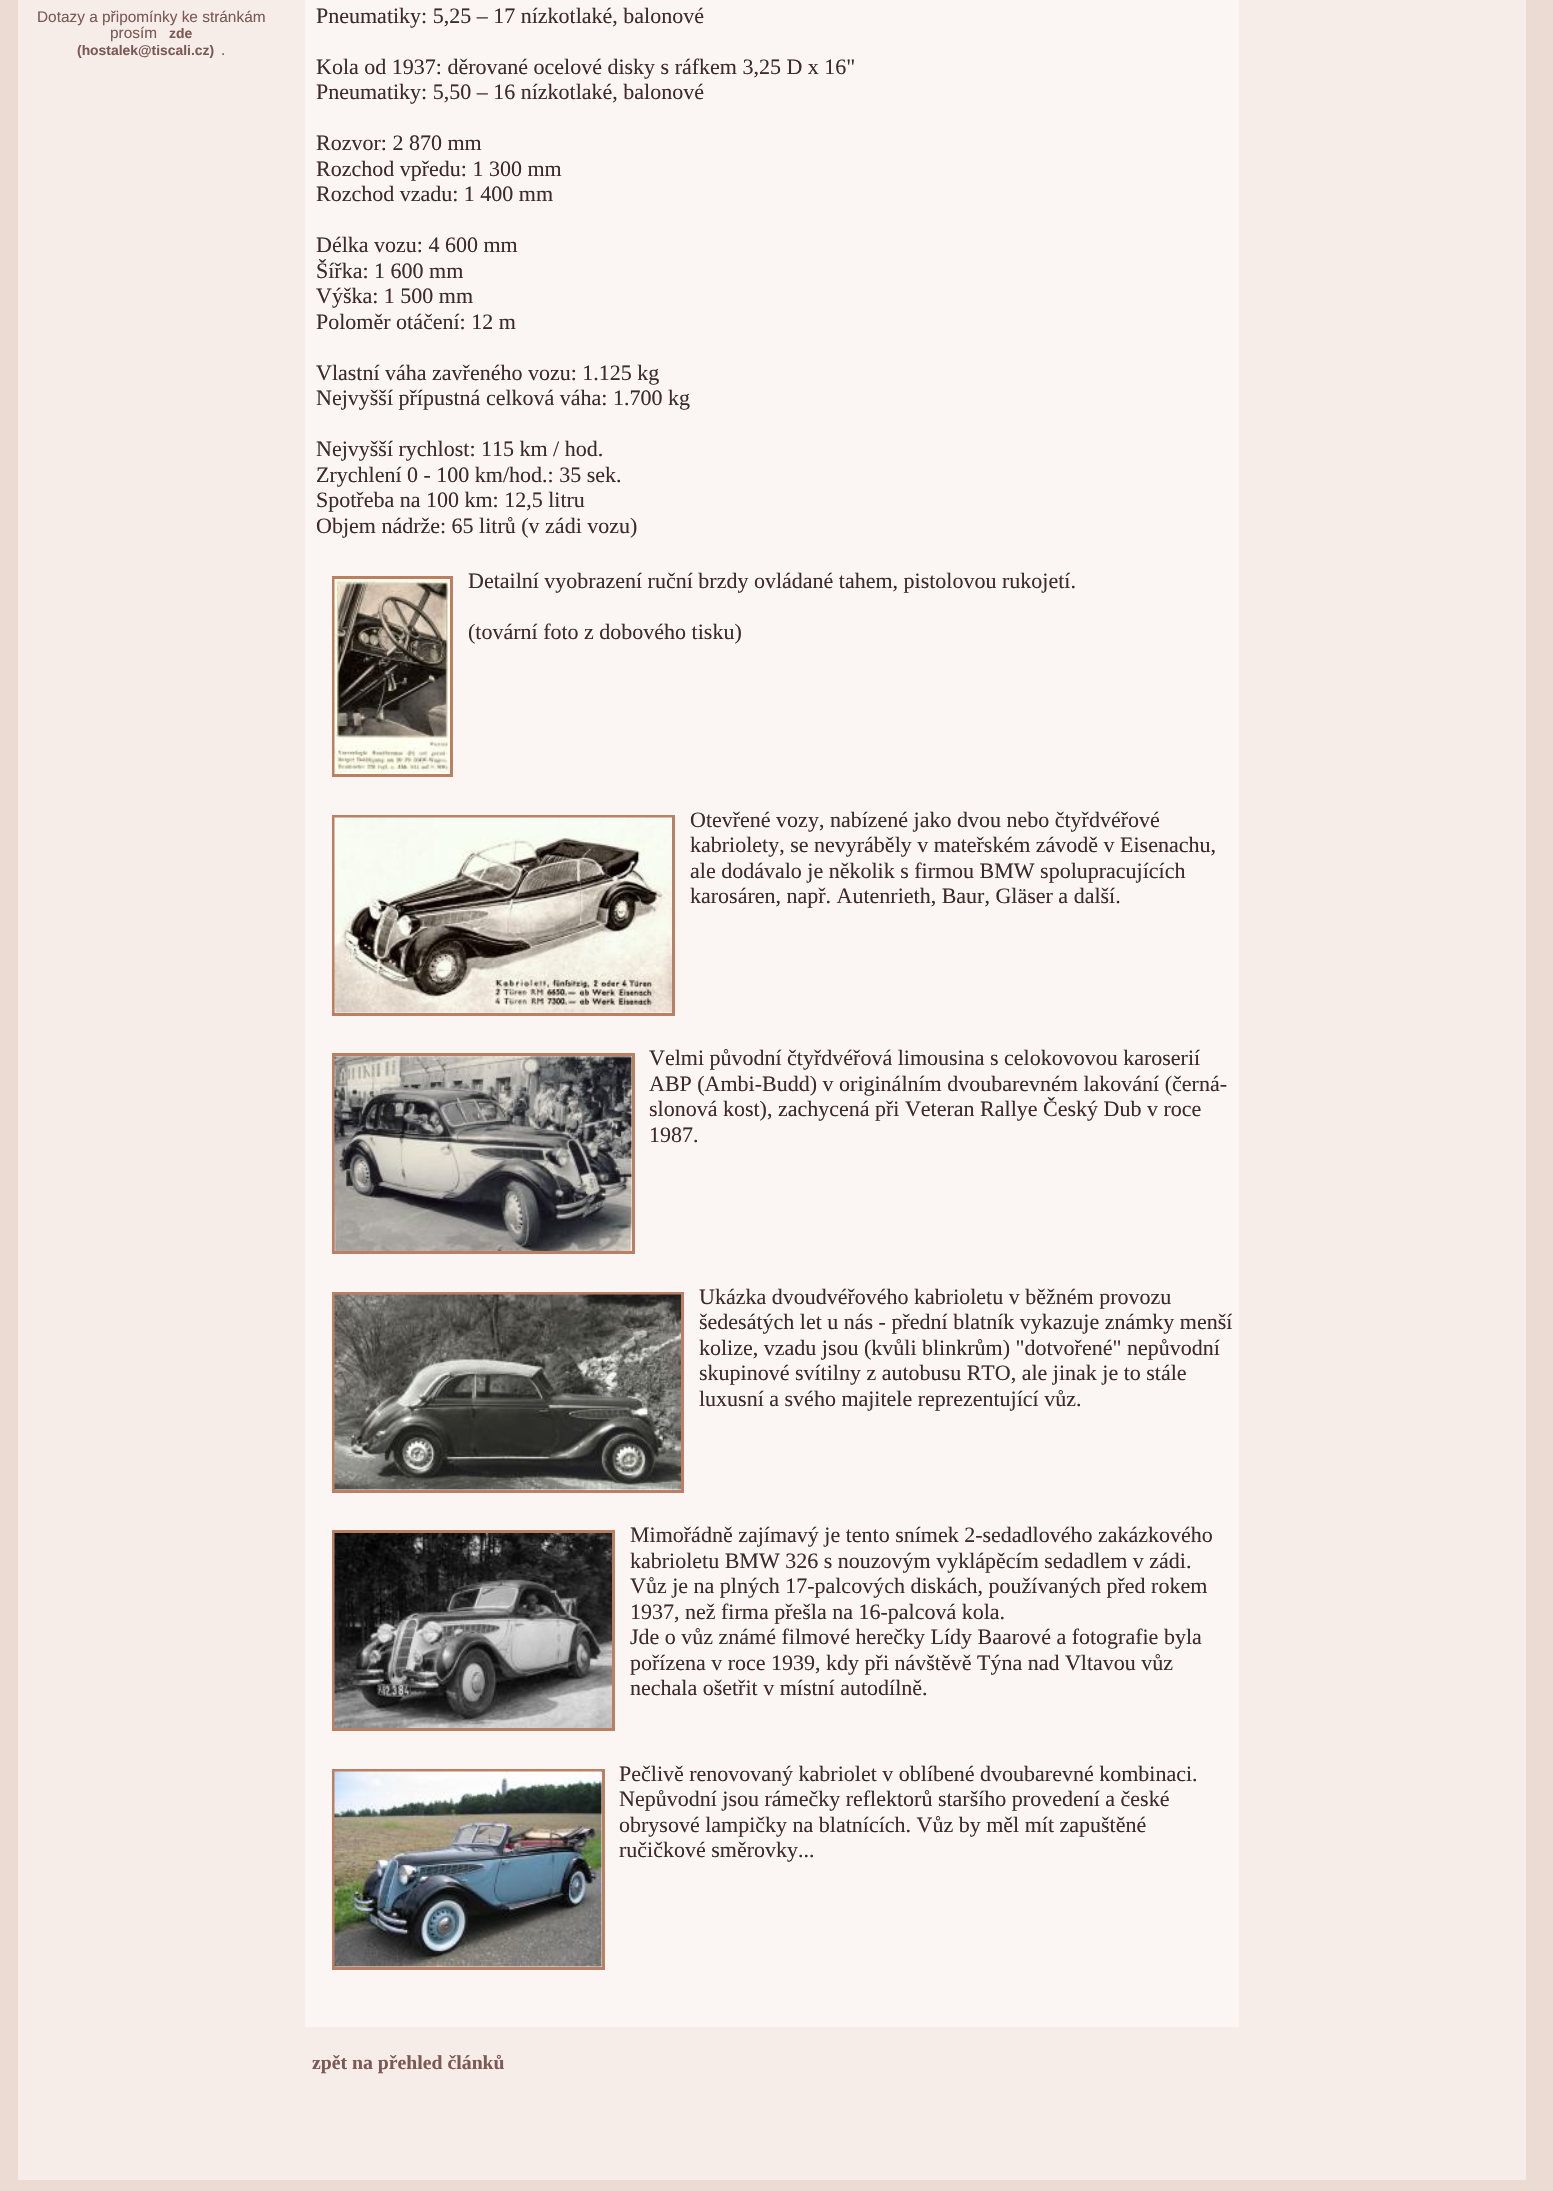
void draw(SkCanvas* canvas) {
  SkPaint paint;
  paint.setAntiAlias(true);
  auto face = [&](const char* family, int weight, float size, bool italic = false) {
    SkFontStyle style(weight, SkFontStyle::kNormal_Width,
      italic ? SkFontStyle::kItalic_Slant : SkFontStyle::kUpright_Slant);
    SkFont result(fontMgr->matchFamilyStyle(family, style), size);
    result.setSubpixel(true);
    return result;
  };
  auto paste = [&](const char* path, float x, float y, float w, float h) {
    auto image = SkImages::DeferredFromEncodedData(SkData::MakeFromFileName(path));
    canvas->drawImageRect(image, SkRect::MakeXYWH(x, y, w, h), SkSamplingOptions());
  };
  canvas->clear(0xffecdbd3);
  paint.setColor(0xfff6ede9);
  canvas->drawRect(SkRect::MakeXYWH(18, 0, 1508, 2180), paint);
  paint.setColor(0xfffbf6f4);
  canvas->drawRect(SkRect::MakeXYWH(305, 0, 934, 2027), paint);
  paint.setStroke(true);
  paint.setStrokeWidth(3);
  paint.setColor(0xffbb8064);
  canvas->drawRect(SkRect::MakeXYWH(333.5f, 577.5f, 118, 198), paint);
  paste("img/1.png", 334, 579, 116, 195);
  canvas->drawRect(SkRect::MakeXYWH(333.5f, 816.5f, 340, 198), paint);
  paste("img/2.png", 334, 817, 338, 196);
  canvas->drawRect(SkRect::MakeXYWH(333.5f, 1054.5f, 300, 198), paint);
  paste("img/3.png", 334, 1056, 298, 195);
  canvas->drawRect(SkRect::MakeXYWH(333.5f, 1293.5f, 349, 198), paint);
  paste("img/4.png", 334, 1294, 347, 196);
  canvas->drawRect(SkRect::MakeXYWH(333.5f, 1531.5f, 280, 198), paint);
  paste("img/5.png", 334, 1533, 278, 195);
  canvas->drawRect(SkRect::MakeXYWH(333.5f, 1770.5f, 270, 198), paint);
  paste("img/6.png", 334, 1771, 268, 196);
  auto f0 = face("Liberation Sans", 400, 15.4f);
  paint.setStroke(false);
  paint.setColor(0xff7c5956);
  canvas->drawString("Dotazy a připomínky ke stránkám", 37, 22, f0, paint);
  canvas->drawString("prosím", 110, 38, f0, paint);
  auto f1 = face("Liberation Sans", 700, 13.9f);
  canvas->drawString("zde", 169, 38, f1, paint);
  canvas->drawString("(hostalek@tiscali.cz)", 77, 55, f1, paint);
  canvas->drawString(".", 221, 55, f0, paint);
  auto f2 = face("Liberation Serif", 400, 22);
  paint.setColor(0xff3e2a29);
  {
    const struct { const char* s; float x, y; } items[] = {
      {"Pneumatiky: 5,25 – 17 nízkotlaké, balonové", 316, 23},
      {"Kola od 1937: děrované ocelové disky s ráfkem 3,25 D x 16\"", 316, 74},
      {"Pneumatiky: 5,50 – 16 nízkotlaké, balonové", 316, 99},
      {"Rozvor: 2 870 mm", 316, 150},
      {"Rozchod vpředu: 1 300 mm", 316, 176},
      {"Rozchod vzadu: 1 400 mm", 316, 201},
      {"Délka vozu: 4 600 mm", 316, 252},
      {"Šířka: 1 600 mm", 316, 278},
      {"Výška: 1 500 mm", 316, 303},
      {"Poloměr otáčení: 12 m", 316, 329},
      {"Vlastní váha zavřeného vozu: 1.125 kg", 316, 380},
      {"Nejvyšší přípustná celková váha: 1.700 kg", 316, 405},
      {"Nejvyšší rychlost: 115 km / hod.", 316, 456},
      {"Zrychlení 0 - 100 km/hod.: 35 sek.", 316, 482},
      {"Spotřeba na 100 km: 12,5 litru", 316, 507},
      {"Objem nádrže: 65 litrů (v zádi vozu)", 316, 533},
      {"Detailní vyobrazení ruční brzdy ovládané tahem, pistolovou rukojetí.", 468, 588},
      {"(tovární foto z dobového tisku)", 468, 639},
      {"Otevřené vozy, nabízené jako dvou nebo čtyřdvéřové", 690, 827},
      {"kabriolety, se nevyráběly v mateřském závodě v Eisenachu,", 690, 852},
      {"ale dodávalo je několik s firmou BMW spolupracujících", 690, 878},
      {"karosáren, např. Autenrieth, Baur, Gläser a další.", 690, 903},
      {"Velmi původní čtyřdvéřová limousina s celokovovou karoserií", 649, 1065},
      {"ABP (Ambi-Budd) v originálním dvoubarevném lakování (černá-", 649, 1091},
      {"slonová kost), zachycená při Veteran Rallye Český Dub v roce", 649, 1116},
      {"1987.", 649, 1142},
      {"Ukázka dvoudvéřového kabrioletu v běžném provozu", 699, 1304},
      {"šedesátých let u nás - přední blatník vykazuje známky menší", 699, 1329},
      {"kolize, vzadu jsou (kvůli blinkrům) \"dotvořené\" nepůvodní", 699, 1355},
      {"skupinové svítilny z autobusu RTO, ale jinak je to stále", 699, 1380},
      {"luxusní a svého majitele reprezentující vůz.", 699, 1406},
      {"Mimořádně zajímavý je tento snímek 2-sedadlového zakázkového", 630, 1542},
      {"kabrioletu BMW 326 s nouzovým vyklápěcím sedadlem v zádi.", 630, 1568},
      {"Vůz je na plných 17-palcových diskách, používaných před rokem", 630, 1593},
      {"1937, než firma přešla na 16-palcová kola.", 630, 1619},
      {"Jde o vůz známé filmové herečky Lídy Baarové a fotografie byla", 630, 1644},
      {"pořízena v roce 1939, kdy při návštěvě Týna nad Vltavou vůz", 630, 1670},
      {"nechala ošetřit v místní autodílně.", 630, 1695},
      {"Pečlivě renovovaný kabriolet v oblíbené dvoubarevné kombinaci.", 619, 1781},
      {"Nepůvodní jsou rámečky reflektorů staršího provedení a české", 619, 1806},
      {"obrysové lampičky na blatnících. Vůz by měl mít zapuštěné", 619, 1832},
      {"ručičkové směrovky...", 619, 1857},
    };
    for (auto [s, x, y] : items) {
      canvas->drawString(s, x, y, f2, paint);
    }
  }
  auto f3 = face("Liberation Serif", 700, 19.75f);
  paint.setColor(0xff7c5956);
  canvas->drawString("zpět na přehled článků", 312, 2069, f3, paint);
}
